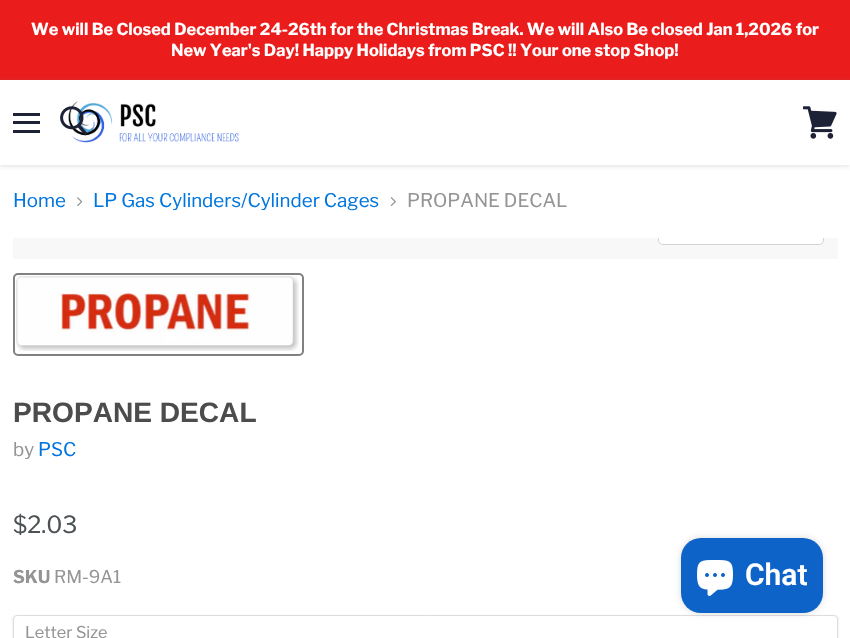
void draw(SkCanvas* canvas) {
  SkPaint paint;
  paint.setAntiAlias(true);
  auto face = [&](const char* family, int weight, float size, bool italic = false) {
    SkFontStyle style(weight, SkFontStyle::kNormal_Width,
      italic ? SkFontStyle::kItalic_Slant : SkFontStyle::kUpright_Slant);
    SkFont result(fontMgr->matchFamilyStyle(family, style), size);
    result.setSubpixel(true);
    return result;
  };
  auto paste = [&](const char* path, float x, float y, float w, float h) {
    auto image = SkImages::DeferredFromEncodedData(SkData::MakeFromFileName(path));
    canvas->drawImageRect(image, SkRect::MakeXYWH(x, y, w, h), SkSamplingOptions());
  };
  auto shape = [&](const char* data, bool evenOdd = false) {
    SkPath result = *SkParsePath::FromSVGString(data);
    if (evenOdd) result.setFillType(SkPathFillType::kEvenOdd);
    return result;
  };
  canvas->clear(0xffffffff);
  paint.setColor(0xffea1c1c);
  canvas->drawRect(SkRect::MakeXYWH(0, 0, 850, 80), paint);
  canvas->save();
  canvas->clipPath(shape("M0 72H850V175H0ZM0 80H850V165H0Z", true), true);
  paint.setColor(0x40808080);
  paint.setMaskFilter(SkMaskFilter::MakeBlur(kNormal_SkBlurStyle, 2.5f));
  canvas->drawRect(SkRect::MakeXYWH(0, 81, 850, 85), paint);
  paint.setMaskFilter(nullptr);
  canvas->restore();
  paste("img/1.png", 68, 101, 171, 42);
  {
    const struct { float x, y, w, h; SkColor color; } items[] = {
      {13, 113, 27, 3, 0xff1d2236},
      {13, 121, 27, 3, 0xff1d2236},
      {13, 130, 27, 3, 0xff1d2236},
    };
    for (auto [x, y, w, h, color] : items) {
      paint.setColor(color);
      canvas->drawRect(SkRect::MakeXYWH(x, y, w, h), paint);
    }
  }
  paste("img/2.png", 60, 106, 28, 30);
  paste("img/3.png", 803, 106, 34, 33);
  paste("img/4.png", 77, 197, 6, 9);
  paste("img/5.png", 390, 197, 6, 9);
  paint.setColor(0xfff8f8f8);
  canvas->drawRect(SkRect::MakeXYWH(13, 238, 825, 21), paint);
  canvas->save();
  canvas->clipRect(SkRect::MakeXYWH(13, 238, 825, 21));
  paint.setStroke(true);
  paint.setStrokeWidth(1);
  paint.setColor(0xffd3d3d3);
  canvas->drawRoundRect(SkRect::MakeXYWH(658.5f, 209.5f, 165, 35), 4.5f, 4.5f, paint);
  canvas->restore();
  paint.setStroke(false);
  paint.setColor(0xe6ffffff);
  canvas->drawPath(shape("M659 238H823V240C823 242 821 244 819 244H663C661 244 659 242 659 240Z"), paint);
  paint.setStroke(true);
  paint.setStrokeWidth(2);
  paint.setColor(0xff818181);
  canvas->drawRoundRect(SkRect::MakeXYWH(14, 274, 289, 81), 4, 4, paint);
  paste("img/6.png", 16, 276, 283, 75);
  paint.setStroke(false);
  paint.setColor(0x26000000);
  paint.setMaskFilter(SkMaskFilter::MakeBlur(kNormal_SkBlurStyle, 1));
  canvas->drawRoundRect(SkRect::MakeXYWH(13, 616, 825, 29), 4, 4, paint);
  paint.setMaskFilter(nullptr);
  paint.setColor(0xffffffff);
  canvas->drawRoundRect(SkRect::MakeXYWH(13.5f, 615.5f, 824, 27), 3.5f, 3.5f, paint);
  paint.setStroke(true);
  paint.setStrokeWidth(1);
  paint.setColor(0xffdddddd);
  canvas->drawRoundRect(SkRect::MakeXYWH(13.5f, 615.5f, 824, 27), 3.5f, 3.5f, paint);
  paint.setStroke(false);
  paint.setColor(0x26000000);
  paint.setMaskFilter(SkMaskFilter::MakeBlur(kNormal_SkBlurStyle, 3));
  canvas->drawRoundRect(SkRect::MakeXYWH(681, 538, 142, 75), 20, 20, paint);
  paint.setMaskFilter(nullptr);
  paint.setColor(0xff0e63c9);
  canvas->drawRoundRect(SkRect::MakeXYWH(681, 538, 142, 75), 20, 20, paint);
  paste("img/7.png", 697, 560, 36, 36);
  auto f0 = face("Libre Franklin", 700, 16.4f);
  paint.setColor(0xffffffff);
  canvas->drawString("We will Be Closed December 24-26th for the Christmas Break. We will Also Be closed Jan 1,2026 for", 31, 35, f0, paint);
  canvas->drawString("New Year's Day! Happy Holidays from PSC !! Your one stop Shop!", 171, 56, f0, paint);
  auto f1 = face("Libre Franklin", 400, 18.75f);
  paint.setColor(0xff0076de);
  canvas->drawString("Home", 13, 207, f1, paint);
  canvas->drawString("LP Gas Cylinders/Cylinder Cages", 93, 207, f1, paint);
  paint.setColor(0xff949494);
  canvas->drawString("PROPANE DECAL", 407, 207, f1, paint);
  auto f2 = face("Arimo", 700, 28.1f);
  paint.setColor(0xff4c4c4c);
  canvas->drawString("PROPANE DECAL", 13, 422, f2, paint);
  paint.setColor(0xff949494);
  canvas->drawString("by", 13, 456, f1, paint);
  paint.setColor(0xff0076de);
  canvas->drawString("PSC", 38, 456, f1, paint);
  auto f3 = face("Libre Franklin", 400, 23.5f);
  paint.setColor(0xff4c5154);
  canvas->drawString("$2.03", 13, 533, f3, paint);
  auto f4 = face("Libre Franklin", 700, 17.5f);
  paint.setColor(0xff949494);
  canvas->drawString("SKU", 13, 583, f4, paint);
  auto f5 = face("Libre Franklin", 400, 17.5f);
  canvas->drawString("RM-9A1", 54, 583, f5, paint);
  auto f6 = face("Libre Franklin", 400, 16.25f);
  canvas->drawString("Letter Size", 25, 638, f6, paint);
  auto f7 = face("Roboto", 600, 30);
  paint.setColor(0xffffffff);
  canvas->drawString("Chat", 745, 585, f7, paint);
}
